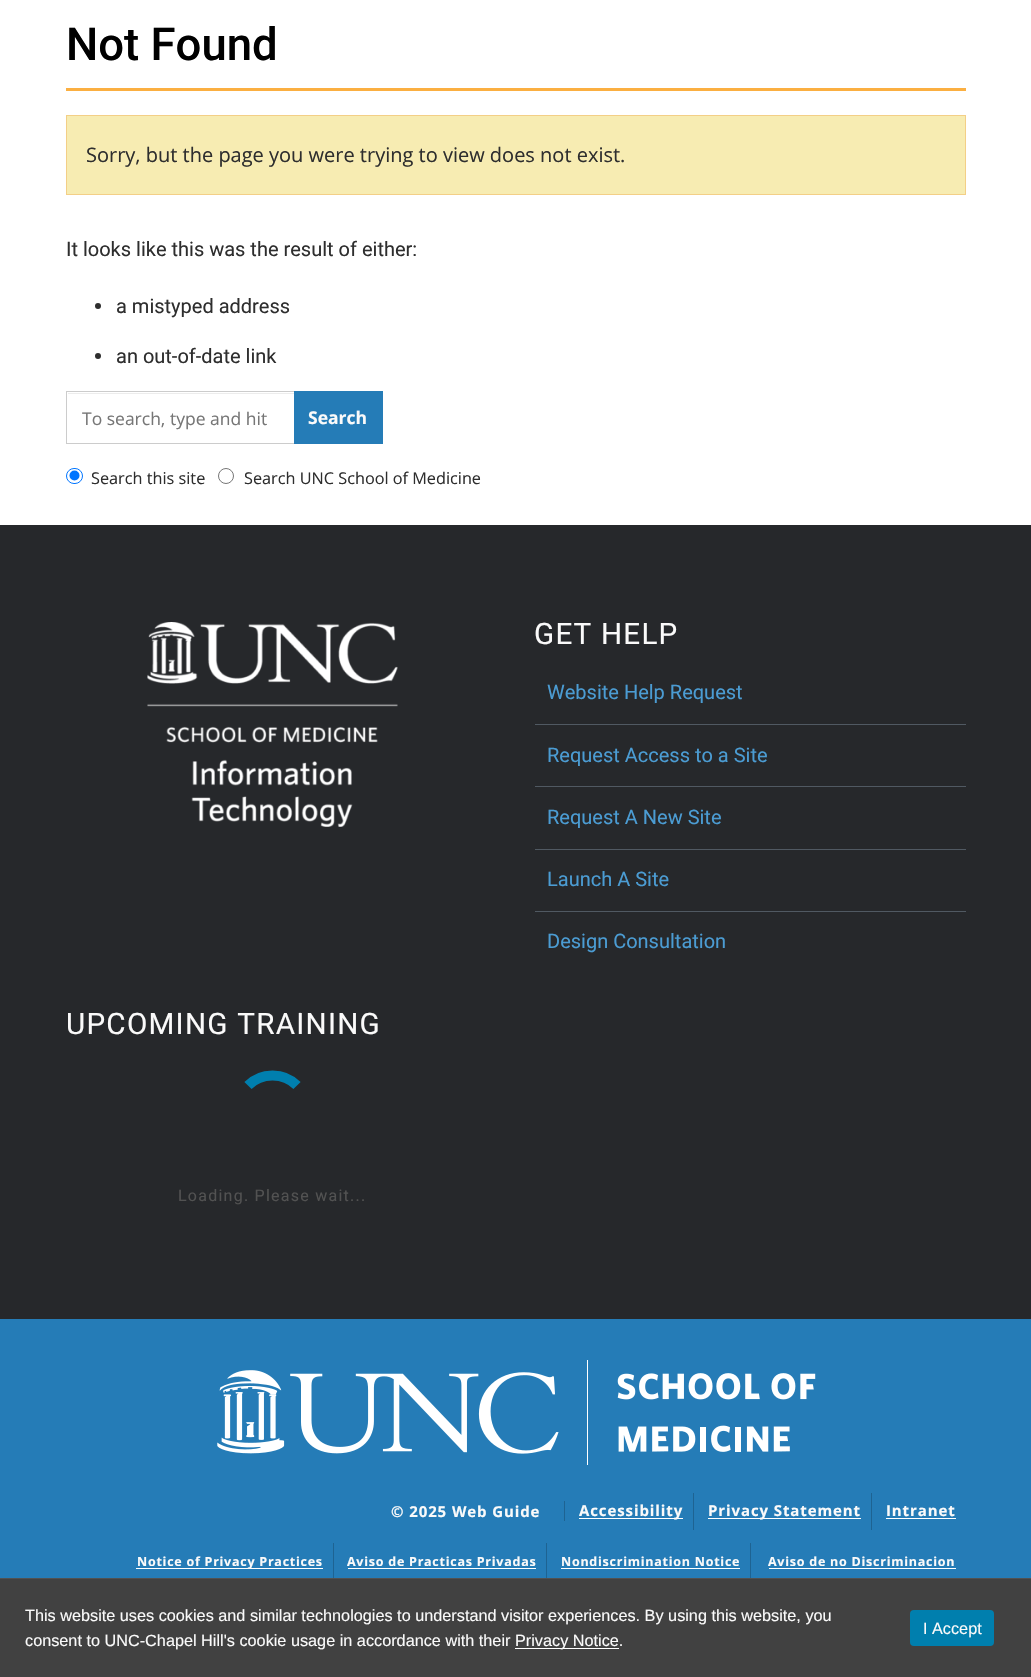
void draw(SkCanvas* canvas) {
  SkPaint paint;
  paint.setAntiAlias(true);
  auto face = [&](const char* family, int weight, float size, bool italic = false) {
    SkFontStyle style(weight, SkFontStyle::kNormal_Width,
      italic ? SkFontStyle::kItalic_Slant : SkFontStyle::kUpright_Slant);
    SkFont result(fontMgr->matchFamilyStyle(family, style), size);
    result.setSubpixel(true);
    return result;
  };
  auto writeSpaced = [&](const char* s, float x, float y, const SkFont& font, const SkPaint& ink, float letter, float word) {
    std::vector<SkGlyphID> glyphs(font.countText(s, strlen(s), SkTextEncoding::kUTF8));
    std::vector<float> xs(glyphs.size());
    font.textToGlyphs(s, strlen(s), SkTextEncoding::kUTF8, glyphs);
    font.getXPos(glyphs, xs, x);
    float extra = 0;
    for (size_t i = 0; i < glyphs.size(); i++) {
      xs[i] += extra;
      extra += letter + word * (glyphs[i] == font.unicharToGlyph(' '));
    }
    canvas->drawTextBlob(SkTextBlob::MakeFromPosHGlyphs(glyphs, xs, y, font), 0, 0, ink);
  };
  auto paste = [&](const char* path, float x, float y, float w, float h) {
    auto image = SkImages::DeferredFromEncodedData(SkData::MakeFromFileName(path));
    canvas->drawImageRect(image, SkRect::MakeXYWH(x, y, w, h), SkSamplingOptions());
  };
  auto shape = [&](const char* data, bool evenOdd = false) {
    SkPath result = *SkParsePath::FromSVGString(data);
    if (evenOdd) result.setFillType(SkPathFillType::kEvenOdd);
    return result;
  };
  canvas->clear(0xffffffff);
  paint.setColor(0xfffbaf41);
  canvas->drawRect(SkRect::MakeXYWH(66, 88, 900, 3), paint);
  paint.setColor(0xfff7ecb2);
  canvas->drawRect(SkRect::MakeXYWH(66.5f, 115.5f, 899, 79), paint);
  paint.setStroke(true);
  paint.setStrokeWidth(1);
  paint.setColor(0xfff3cf87);
  canvas->drawRect(SkRect::MakeXYWH(66.5f, 115.5f, 899, 79), paint);
  paint.setStroke(false);
  paint.setColor(0xff2e2e2e);
  canvas->drawCircle(98, 306, 3, paint);
  canvas->drawCircle(98, 356, 3, paint);
  paint.setColor(0xffececec);
  canvas->drawRect(SkRect::MakeXYWH(68, 393, 226, 1), paint);
  paint.setStroke(true);
  paint.setColor(0xffcccccc);
  canvas->drawRect(SkRect::MakeXYWH(66.5f, 391.5f, 228, 52), paint);
  paint.setStroke(false);
  paint.setColor(0xff257cb7);
  canvas->drawRect(SkRect::MakeXYWH(294, 391, 89, 53), paint);
  paint.setStroke(true);
  paint.setColor(0xff0075ff);
  canvas->drawRoundRect(SkRect::MakeXYWH(66.5f, 468.5f, 16, 15), 7.5f, 7.5f, paint);
  paint.setStroke(false);
  canvas->drawCircle(74.5f, 475.5f, 5, paint);
  paint.setStroke(true);
  paint.setColor(0xff767676);
  canvas->drawCircle(226, 476, 7.5f, paint);
  paint.setStroke(false);
  paint.setColor(0xff26282b);
  canvas->drawRect(SkRect::MakeXYWH(0, 525, 1031, 794), paint);
  paste("img/1.png", 147, 622, 251, 205);
  {
    const struct { float x, y, w, h; SkColor color; } items[] = {
      {535, 724, 431, 1, 0xff505962},
      {535, 786, 431, 1, 0xff505962},
      {535, 849, 431, 1, 0xff505962},
      {535, 911, 431, 1, 0xff505962},
    };
    for (auto [x, y, w, h, color] : items) {
      paint.setColor(color);
      canvas->drawRect(SkRect::MakeXYWH(x, y, w, h), paint);
    }
  }
  paint.setStroke(true);
  paint.setStrokeWidth(10);
  paint.setColor(0xff007fae);
  canvas->drawPath(shape("M248 1085.5C261 1072 284 1072 297 1085.5M248 1085.5C261 1072 284 1072 297 1085.5M248 1085.5C261 1072 284 1072 297 1085.5M248 1085.5C261 1072 284 1072 297 1085.5"), paint);
  paint.setStroke(false);
  paint.setColor(0xff257cb7);
  canvas->drawRect(SkRect::MakeXYWH(0, 1319, 1031, 259), paint);
  paste("img/2.png", 217, 1360, 599, 105);
  {
    const struct { float x, y, w, h; SkColor color; } items[] = {
      {564, 1501, 1, 20, 0xff1e6392},
      {693, 1493, 1, 37, 0xff1e6392},
      {579, 1518, 104, 1, 0xffffffff},
      {871, 1493, 1, 37, 0xff1e6392},
      {708, 1518, 153, 1, 0xffffffff},
      {886, 1518, 70, 1, 0xffffffff},
      {333, 1543, 1, 37, 0xff1e6392},
      {136, 1568, 187, 1, 0xffffffff},
      {546, 1543, 1, 37, 0xff1e6392},
      {348, 1568, 188, 1, 0xffffffff},
      {750, 1543, 1, 37, 0xff1e6392},
      {561, 1568, 179, 1, 0xffffffff},
      {769, 1568, 187, 1, 0xffffffff},
      {0, 1579, 1031, 98, 0xff414141},
      {0, 1578, 1031, 1, 0xff515151},
      {515, 1648, 104, 1, 0xffffffff},
    };
    for (auto [x, y, w, h, color] : items) {
      paint.setColor(color);
      canvas->drawRect(SkRect::MakeXYWH(x, y, w, h), paint);
    }
  }
  paint.setColor(0xff007fae);
  canvas->drawRoundRect(SkRect::MakeXYWH(910, 1610, 84, 36), 4, 4, paint);
  auto f0 = face("Roboto", 500, 45.5f);
  paint.setColor(0xff000000);
  canvas->drawString("Not Found", 66, 60, f0, paint);
  auto f1 = face("Open Sans", 400, 20);
  paint.setColor(0xff2e2e2e);
  canvas->drawString("Sorry, but the page you were trying to view does not exist.", 86, 162, f1, paint);
  auto f2 = face("Roboto", 400, 20);
  {
    const struct { const char* s; float x, y; } items[] = {
      {"It looks like this was the result of either:", 66, 256},
      {"a mistyped address", 116, 313},
      {"an out-of-date link", 116, 363},
    };
    for (auto [s, x, y] : items) {
      canvas->drawString(s, x, y, f2, paint);
    }
  }
  auto f3 = face("Open Sans", 400, 17.5f);
  paint.setColor(0xff767676);
  canvas->drawString("To search, type and hit", 82, 425, f3, paint);
  auto f4 = face("Open Sans", 700, 17.5f);
  paint.setColor(0xfffafafa);
  canvas->drawString("Search", 308, 424, f4, paint);
  auto f5 = face("Open Sans", 400, 16.25f);
  paint.setColor(0xff2e2e2e);
  canvas->drawString("Search this site", 91, 484, f5, paint);
  canvas->drawString("Search UNC School of Medicine", 244, 484, f5, paint);
  auto f6 = face("Roboto", 400, 29.6f);
  paint.setColor(0xfffafafa);
  writeSpaced("GET HELP", 534, 644, f6, paint, 1.25f, 0);
  paint.setColor(0xff4b9cd3);
  {
    const struct { const char* s; float x, y; } items[] = {
      {"Website Help Request", 547, 699},
      {"Request Access to a Site", 547, 762},
      {"Request A New Site", 547, 824},
      {"Launch A Site", 547, 886},
      {"Design Consultation", 547, 948},
    };
    for (auto [s, x, y] : items) {
      canvas->drawString(s, x, y, f2, paint);
    }
  }
  paint.setColor(0xfffafafa);
  writeSpaced("UPCOMING TRAINING", 66, 1034, f6, paint, 1.25f, 0);
  auto f7 = face("Roboto", 400, 16);
  paint.setColor(0xff525252);
  writeSpaced("Loading. Please wait...", 178, 1201, f7, paint, 1.25f, 0);
  auto f8 = face("Open Sans", 700, 15);
  paint.setColor(0xfffafafa);
  {
    const struct { const char* s; float x, y; } items[] = {
      {"© 2025 Web Guide", 391, 1517},
      {"Accessibility", 579, 1516},
      {"Privacy Statement", 708, 1516},
      {"Intranet", 886, 1516},
    };
    for (auto [s, x, y] : items) {
      writeSpaced(s, x, y, f8, paint, 0.9f, 0);
    }
  }
  auto f9 = face("Open Sans", 700, 12.5f);
  {
    const struct { const char* s; float x, y; } items[] = {
      {"Notice of Privacy Practices", 137, 1566},
      {"Aviso de Practicas Privadas", 347, 1566},
      {"Nondiscrimination Notice", 561, 1566},
      {"Aviso de no Discriminacion", 768, 1566},
    };
    for (auto [s, x, y] : items) {
      writeSpaced(s, x, y, f9, paint, 0.75f, 0);
    }
  }
  auto f10 = face("Liberation Sans", 400, 16.25f);
  {
    const struct { const char* s; float x, y; } items[] = {
      {"This website uses cookies and similar technologies to understand visitor experiences. By using this website, you", 25, 1621},
      {"consent to UNC-Chapel Hill's cookie usage in accordance with their", 25, 1646},
      {"Privacy Notice.", 515, 1646},
      {"I Accept", 923, 1634},
    };
    for (auto [s, x, y] : items) {
      canvas->drawString(s, x, y, f10, paint);
    }
  }
}
